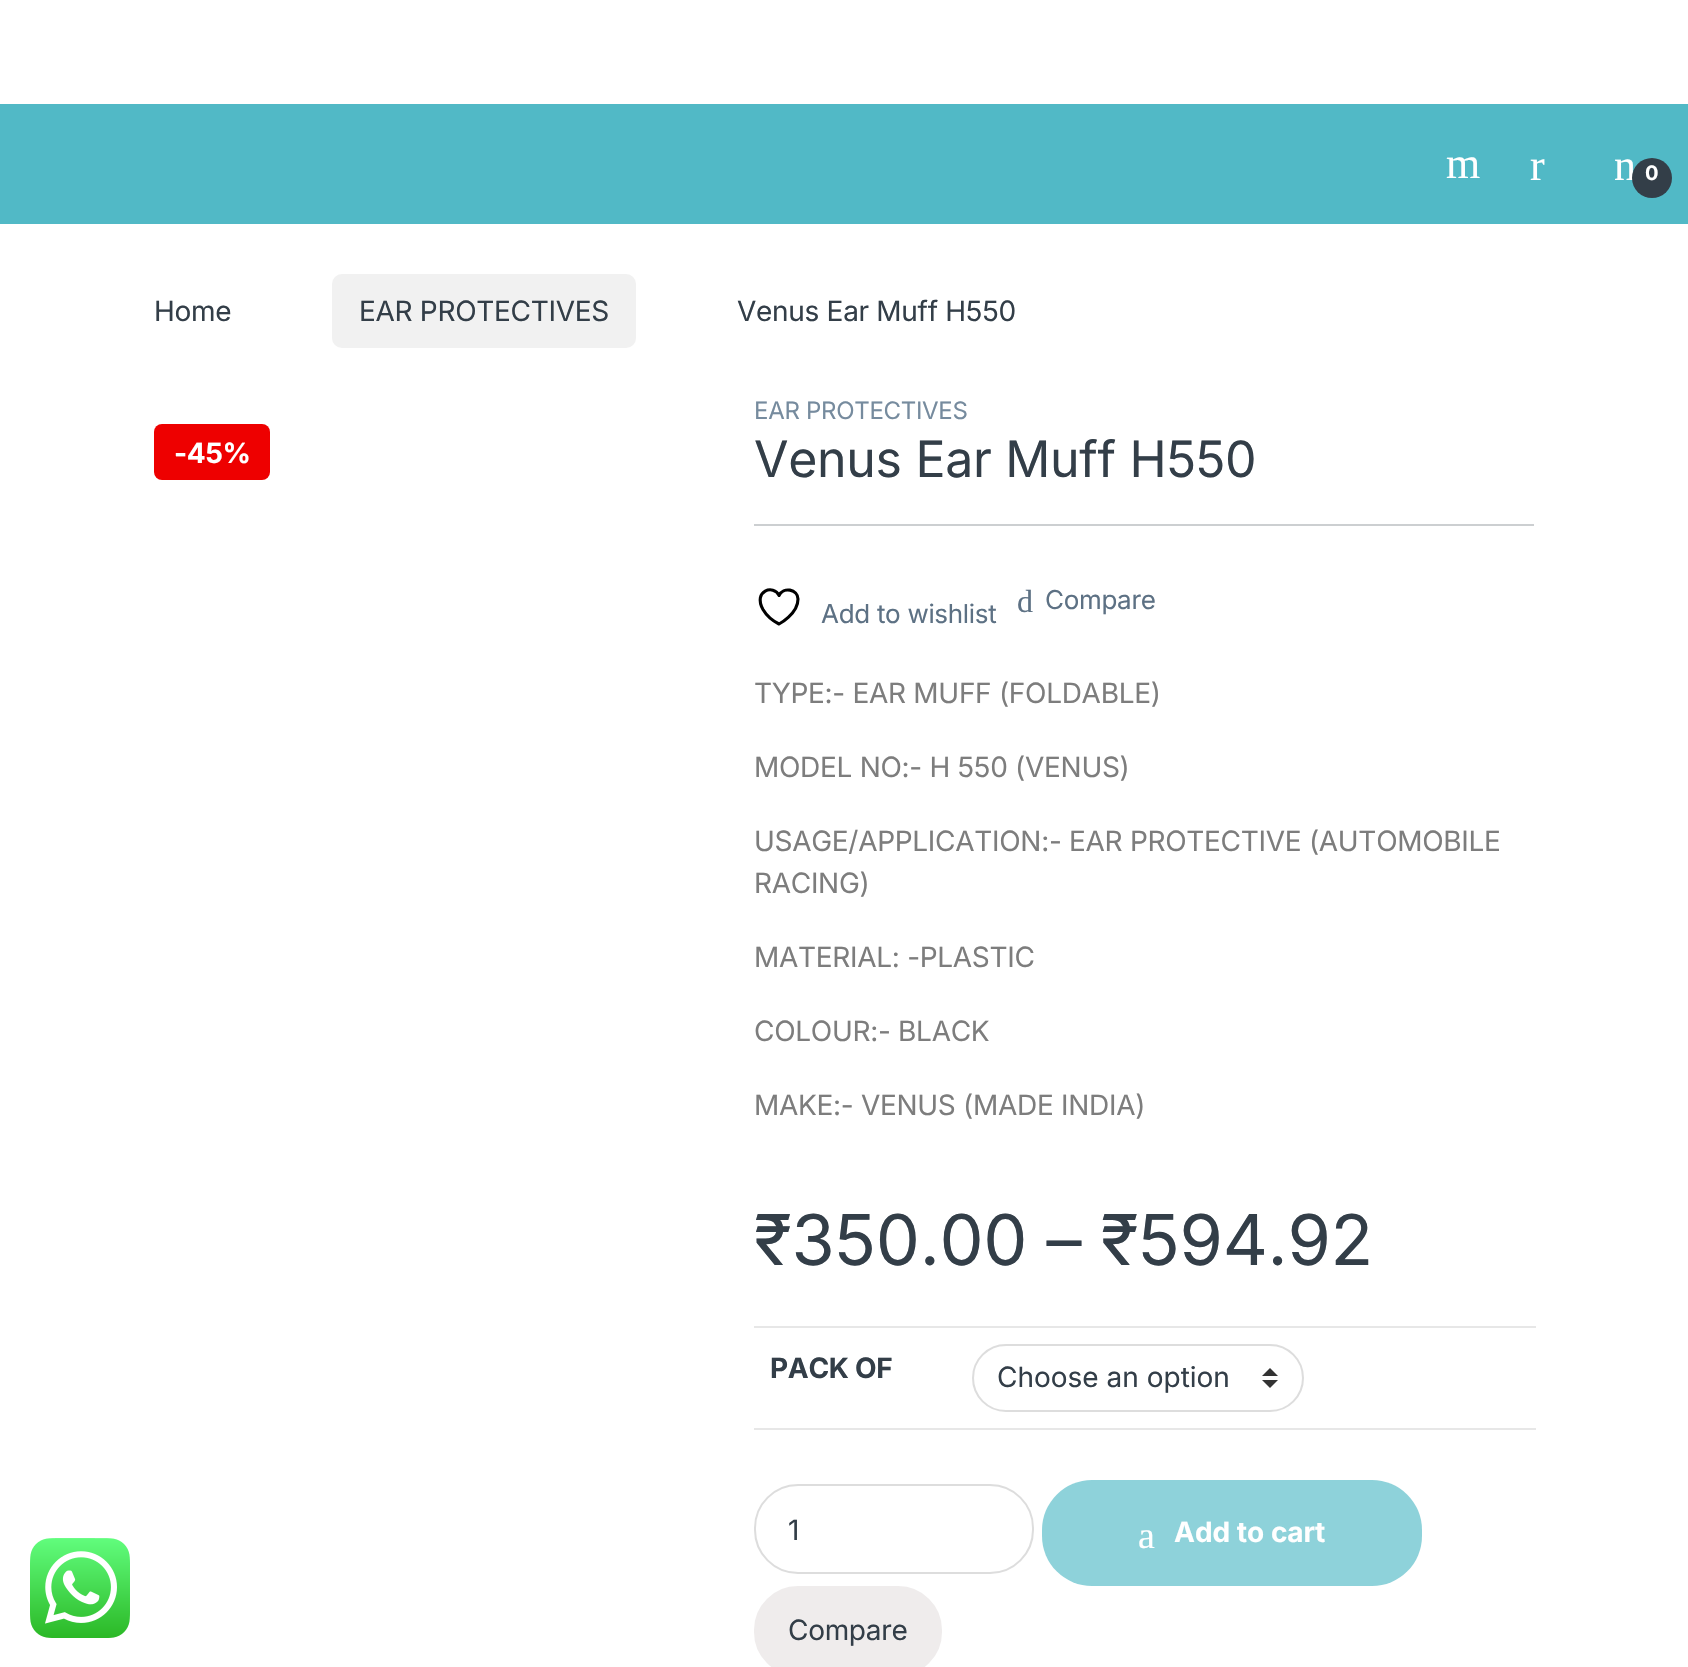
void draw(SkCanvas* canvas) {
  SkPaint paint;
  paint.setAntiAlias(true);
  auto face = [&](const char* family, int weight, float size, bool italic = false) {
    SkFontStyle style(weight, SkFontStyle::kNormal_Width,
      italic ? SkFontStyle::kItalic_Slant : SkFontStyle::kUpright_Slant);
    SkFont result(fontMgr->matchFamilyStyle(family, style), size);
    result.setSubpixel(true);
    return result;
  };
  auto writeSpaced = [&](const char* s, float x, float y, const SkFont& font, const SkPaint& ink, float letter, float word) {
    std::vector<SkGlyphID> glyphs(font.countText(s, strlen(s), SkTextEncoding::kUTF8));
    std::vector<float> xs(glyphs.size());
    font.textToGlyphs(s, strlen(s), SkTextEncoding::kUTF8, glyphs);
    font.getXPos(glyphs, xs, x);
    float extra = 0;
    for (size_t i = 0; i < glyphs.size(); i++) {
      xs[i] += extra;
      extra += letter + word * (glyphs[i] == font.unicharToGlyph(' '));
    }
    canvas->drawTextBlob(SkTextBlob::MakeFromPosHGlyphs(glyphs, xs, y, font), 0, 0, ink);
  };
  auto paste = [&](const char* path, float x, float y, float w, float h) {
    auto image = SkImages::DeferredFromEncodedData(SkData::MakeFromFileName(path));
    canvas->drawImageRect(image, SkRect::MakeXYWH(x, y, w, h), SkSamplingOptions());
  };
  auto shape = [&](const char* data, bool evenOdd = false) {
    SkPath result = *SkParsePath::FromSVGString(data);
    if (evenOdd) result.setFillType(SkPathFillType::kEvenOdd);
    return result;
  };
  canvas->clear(0xffffffff);
  paste("img/1.png", 30, 1538, 100, 100);
  paint.setColor(0xff51b9c6);
  canvas->drawRect(SkRect::MakeXYWH(0, 104, 1688, 120), paint);
  paint.setColor(0xfff1f1f1);
  canvas->drawRoundRect(SkRect::MakeXYWH(332, 274, 304, 74), 10, 10, paint);
  paint.setColor(0xffee0000);
  canvas->drawRoundRect(SkRect::MakeXYWH(154, 424, 116, 56), 8, 8, paint);
  paint.setColor(0xffcccfd1);
  canvas->drawRect(SkRect::MakeXYWH(754, 524, 780, 2), paint);
  paint.setStroke(true);
  paint.setStrokeWidth(3.1f);
  paint.setStrokeCap(SkPaint::kRound_Cap);
  paint.setStrokeJoin(SkPaint::kRound_Join);
  paint.setColor(0xff000000);
  canvas->drawPath(shape("M798 599C798 589 783 586.5 779 595.5C774 584 752.5 590.5 763 609.5C766.5 615.5 773 621 779 624C779 624 798 614 798 599Z"), paint);
  paint.setStroke(false);
  paint.setColor(0xffe7e7e7);
  canvas->drawRect(SkRect::MakeXYWH(754, 1326, 782, 2), paint);
  canvas->drawRect(SkRect::MakeXYWH(754, 1428, 782, 2), paint);
  paste("img/2.png", 1262, 1368, 16, 20);
  paint.setStroke(true);
  paint.setStrokeWidth(2);
  paint.setStrokeCap(SkPaint::kButt_Cap);
  paint.setStrokeJoin(SkPaint::kMiter_Join);
  paint.setColor(0xffdddddd);
  canvas->drawRoundRect(SkRect::MakeXYWH(973, 1345, 330, 66), 33, 33, paint);
  canvas->drawRoundRect(SkRect::MakeXYWH(755, 1485, 278, 88), 43, 43, paint);
  paint.setStroke(false);
  paint.setColor(0xff8ed2da);
  canvas->drawRoundRect(SkRect::MakeXYWH(1042, 1480, 380, 106), 50, 50, paint);
  paint.setColor(0xffefecec);
  canvas->drawRoundRect(SkRect::MakeXYWH(755, 1587, 186, 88), 43, 43, paint);
  paint.setStroke(true);
  canvas->drawRoundRect(SkRect::MakeXYWH(755, 1587, 186, 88), 43, 43, paint);
  auto f0 = face("Liberation Serif", 400, 44);
  paint.setStroke(false);
  paint.setColor(0xffffffff);
  {
    const struct { const char* s; float x, y; } items[] = {
      {"m", 1446, 178},
      {"r", 1530, 180},
      {"n", 1614, 180},
    };
    for (auto [s, x, y] : items) {
      writeSpaced(s, x, y, f0, paint, -0.3f, 0);
    }
  }
  paint.setColor(0xff333e48);
  canvas->drawCircle(1652, 178, 20, paint);
  auto f1 = face("Inter", 700, 20);
  paint.setColor(0xffffffff);
  writeSpaced("0", 1645, 180, f1, paint, -0.3f, 0);
  auto f2 = face("Inter", 400, 28);
  paint.setColor(0xff333e48);
  {
    const struct { const char* s; float x, y; } items[] = {
      {"Home", 154, 321},
      {"EAR PROTECTIVES", 359, 321},
      {"Venus Ear Muff H550", 737, 321},
    };
    for (auto [s, x, y] : items) {
      writeSpaced(s, x, y, f2, paint, -0.3f, 0);
    }
  }
  auto f3 = face("Inter", 700, 28);
  paint.setColor(0xffffffff);
  writeSpaced("-45%", 174, 463, f3, paint, -0.3f, 0);
  auto f4 = face("Inter", 400, 24);
  paint.setColor(0xff768b9e);
  writeSpaced("EAR PROTECTIVES", 754, 419, f4, paint, -0.3f, 0);
  auto f5 = face("Inter", 400, 50);
  paint.setColor(0xff333e48);
  writeSpaced("Venus Ear Muff H550", 754, 477, f5, paint, -0.3f, 0);
  auto f6 = face("Inter", 400, 26);
  paint.setColor(0xff5d7184);
  writeSpaced("Add to wishlist", 821, 623, f6, paint, -0.3f, 0);
  auto f7 = face("Liberation Serif", 400, 32);
  writeSpaced("d", 1017, 612, f7, paint, -0.3f, 0);
  writeSpaced("Compare", 1045, 609, f6, paint, -0.3f, 0);
  paint.setColor(0xff7d7d7d);
  {
    const struct { const char* s; float x, y; } items[] = {
      {"TYPE:- EAR MUFF (FOLDABLE)", 754, 703},
      {"MODEL NO:- H 550 (VENUS)", 754, 777},
      {"USAGE/APPLICATION:- EAR PROTECTIVE (AUTOMOBILE", 754, 851},
      {"RACING)", 754, 893},
      {"MATERIAL: -PLASTIC", 754, 967},
      {"COLOUR:- BLACK", 754, 1041},
      {"MAKE:- VENUS (MADE INDIA)", 754, 1115},
    };
    for (auto [s, x, y] : items) {
      writeSpaced(s, x, y, f2, paint, -0.3f, 0);
    }
  }
  auto f8 = face("Inter", 400, 70);
  paint.setColor(0xff333e48);
  writeSpaced("₹350.00 – ₹594.92", 754, 1265, f8, paint, -0.3f, 0);
  writeSpaced("PACK OF", 770, 1378, f3, paint, -0.3f, 0);
  canvas->drawString("Choose an option", 997, 1387, f2, paint);
  canvas->drawString("1", 788, 1540, f2, paint);
  auto f9 = face("Liberation Serif", 400, 38);
  paint.setColor(0xffffffff);
  canvas->drawString("a", 1138, 1548, f9, paint);
  canvas->drawString("Add to cart", 1174, 1542, f3, paint);
  paint.setColor(0xff333e48);
  writeSpaced("Compare", 788, 1640, f2, paint, -0.3f, 0);
}
